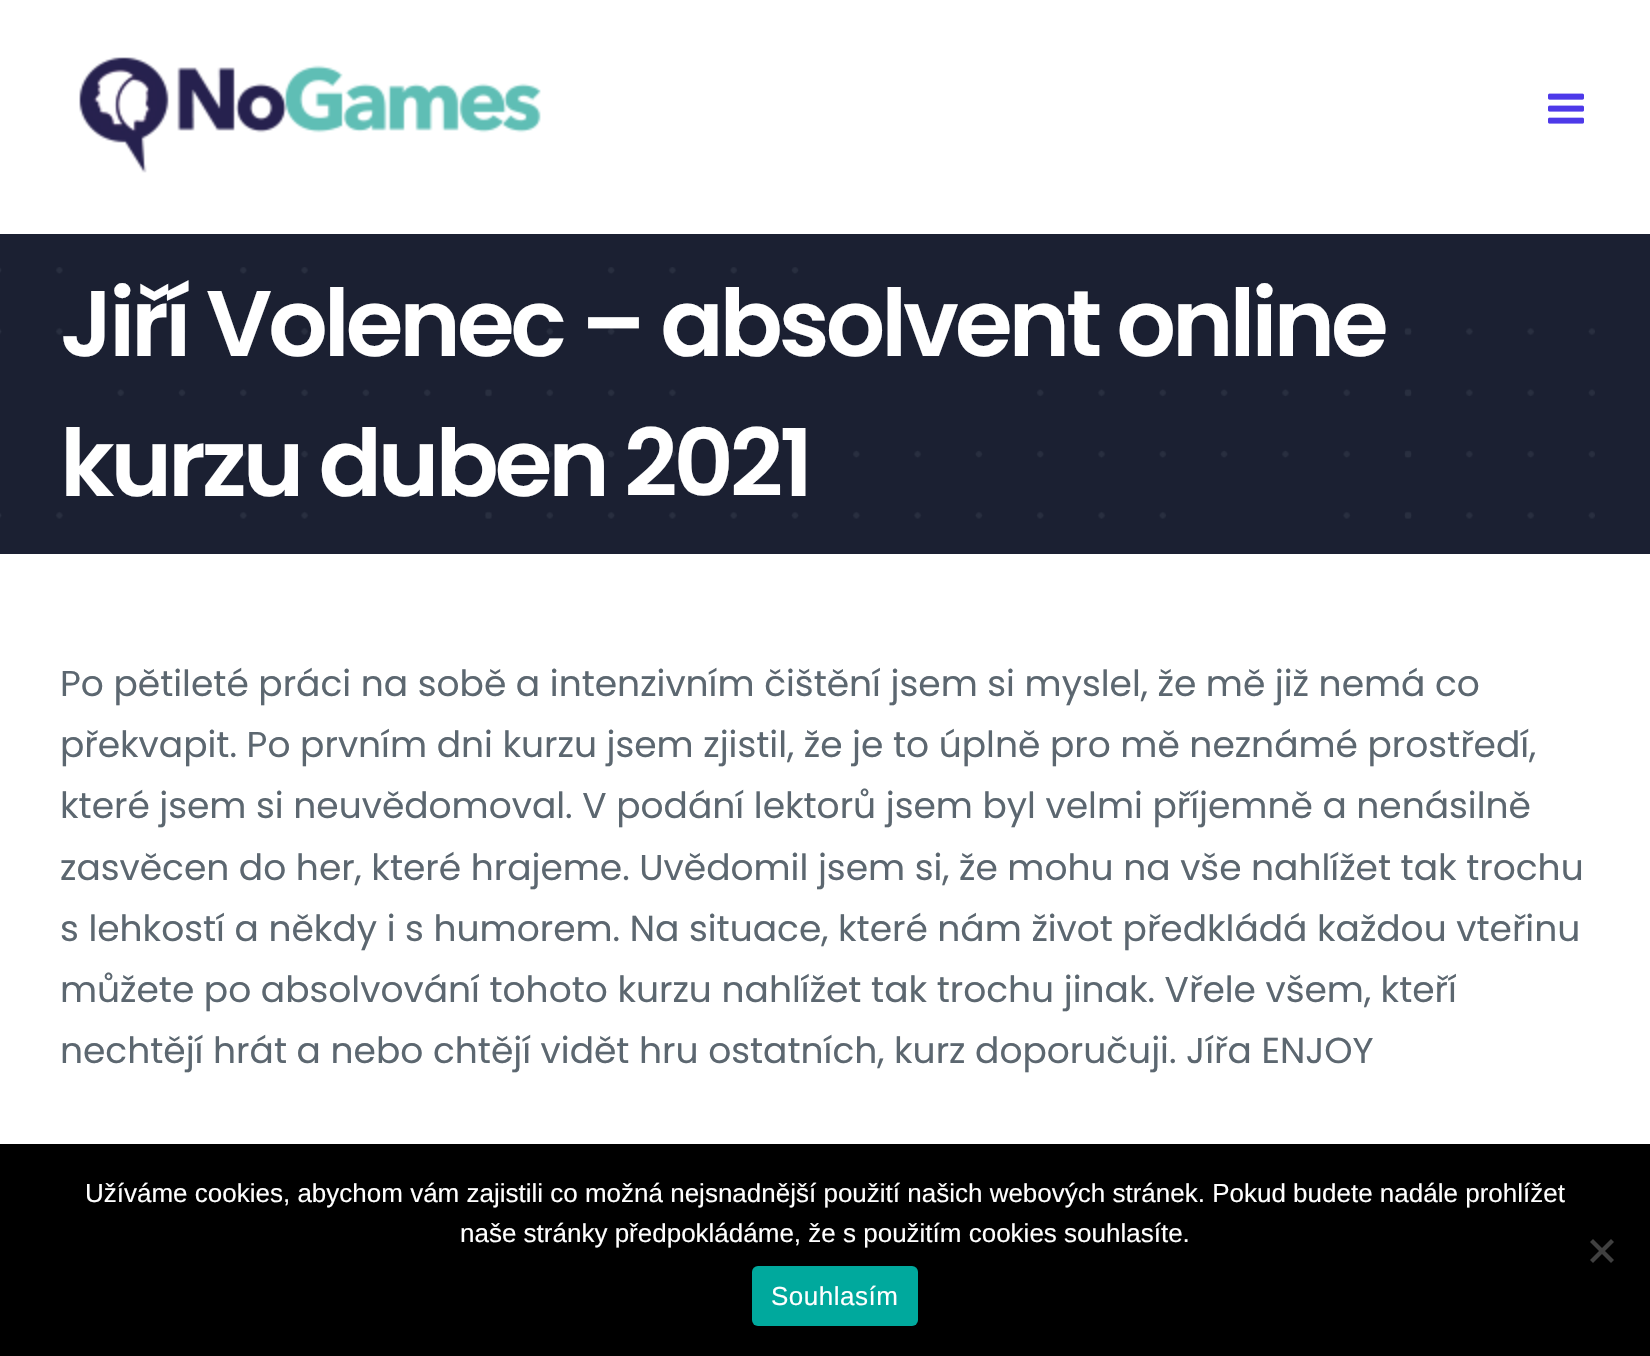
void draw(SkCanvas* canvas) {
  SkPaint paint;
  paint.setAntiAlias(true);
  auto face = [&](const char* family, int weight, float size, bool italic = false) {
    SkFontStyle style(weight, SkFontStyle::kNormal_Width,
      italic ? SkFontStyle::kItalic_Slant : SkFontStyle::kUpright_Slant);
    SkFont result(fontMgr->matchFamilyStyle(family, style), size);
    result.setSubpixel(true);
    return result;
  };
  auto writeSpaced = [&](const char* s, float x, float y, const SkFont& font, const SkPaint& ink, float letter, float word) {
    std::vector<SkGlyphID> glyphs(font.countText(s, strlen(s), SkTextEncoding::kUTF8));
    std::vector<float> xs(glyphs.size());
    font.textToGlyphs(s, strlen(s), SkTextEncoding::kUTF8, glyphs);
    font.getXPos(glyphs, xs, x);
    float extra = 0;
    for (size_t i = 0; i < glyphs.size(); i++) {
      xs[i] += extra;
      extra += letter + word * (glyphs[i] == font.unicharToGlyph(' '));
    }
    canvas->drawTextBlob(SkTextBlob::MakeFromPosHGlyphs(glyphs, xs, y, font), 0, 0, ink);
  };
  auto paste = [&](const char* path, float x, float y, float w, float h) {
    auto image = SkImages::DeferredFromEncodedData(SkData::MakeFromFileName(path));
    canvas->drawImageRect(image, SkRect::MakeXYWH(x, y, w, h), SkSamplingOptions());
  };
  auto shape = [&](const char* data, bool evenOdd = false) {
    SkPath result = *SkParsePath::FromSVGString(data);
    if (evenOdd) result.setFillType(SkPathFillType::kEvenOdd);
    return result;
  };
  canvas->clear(0xffffffff);
  paste("img/1.png", 79, 57, 462, 116);
  paste("img/2.png", 1548, 93, 36, 31);
  paint.setColor(0xff1b2032);
  canvas->drawRect(SkRect::MakeXYWH(0, 234, 1650, 320), paint);
  paste("img/3.png", 0, 267, 1595, 252);
  paint.setColor(0xff000000);
  canvas->drawRect(SkRect::MakeXYWH(0, 1144, 1650, 212), paint);
  paint.setColor(0xff404040);
  canvas->drawPath(shape("M1611 1239L1614 1242L1593 1263L1590 1260Z"), paint);
  canvas->drawPath(shape("M1590 1242L1593 1239L1614 1260L1611 1263Z"), paint);
  paint.setColor(0xff00a99d);
  canvas->drawRoundRect(SkRect::MakeXYWH(752, 1266, 166, 60), 6, 6, paint);
  auto f0 = face("Poppins", 600, 93.25f);
  paint.setColor(0xffffffff);
  writeSpaced("Jiří Volenec – absolvent online", 60, 356, f0, paint, -4, 0);
  writeSpaced("kurzu duben 2021", 60, 496, f0, paint, -4, 0);
  auto f1 = face("Poppins", 400, 36);
  paint.setColor(0xff5c6770);
  {
    const struct { const char* s; float x, y; } items[] = {
      {"Po pětileté práci na sobě a intenzivním čištění jsem si myslel, že mě již nemá co", 60, 696},
      {"překvapit. Po prvním dni kurzu jsem zjistil, že je to úplně pro mě neznámé prostředí,", 60, 757},
      {"které jsem si neuvědomoval. V podání lektorů jsem byl velmi příjemně a nenásilně", 60, 818},
      {"zasvěcen do her, které hrajeme. Uvědomil jsem si, že mohu na vše nahlížet tak trochu", 60, 880},
      {"s lehkostí a někdy i s humorem. Na situace, které nám život předkládá každou vteřinu", 60, 941},
      {"můžete po absolvování tohoto kurzu nahlížet tak trochu jinak. Vřele všem, kteří", 60, 1002},
      {"nechtějí hrát a nebo chtějí vidět hru ostatních, kurz doporučuji. Jířa ENJOY", 60, 1063},
    };
    for (auto [s, x, y] : items) {
      canvas->drawString(s, x, y, f1, paint);
    }
  }
  auto f2 = face("Liberation Sans", 400, 26);
  paint.setColor(0xffffffff);
  canvas->drawString("Užíváme cookies, abychom vám zajistili co možná nejsnadnější použití našich webových stránek. Pokud budete nadále prohlížet", 85, 1202, f2, paint);
  canvas->drawString("naše stránky předpokládáme, že s použitím cookies souhlasíte.", 460, 1242, f2, paint);
  writeSpaced("Souhlasím", 771, 1305, f2, paint, 0.5f, 0);
}
